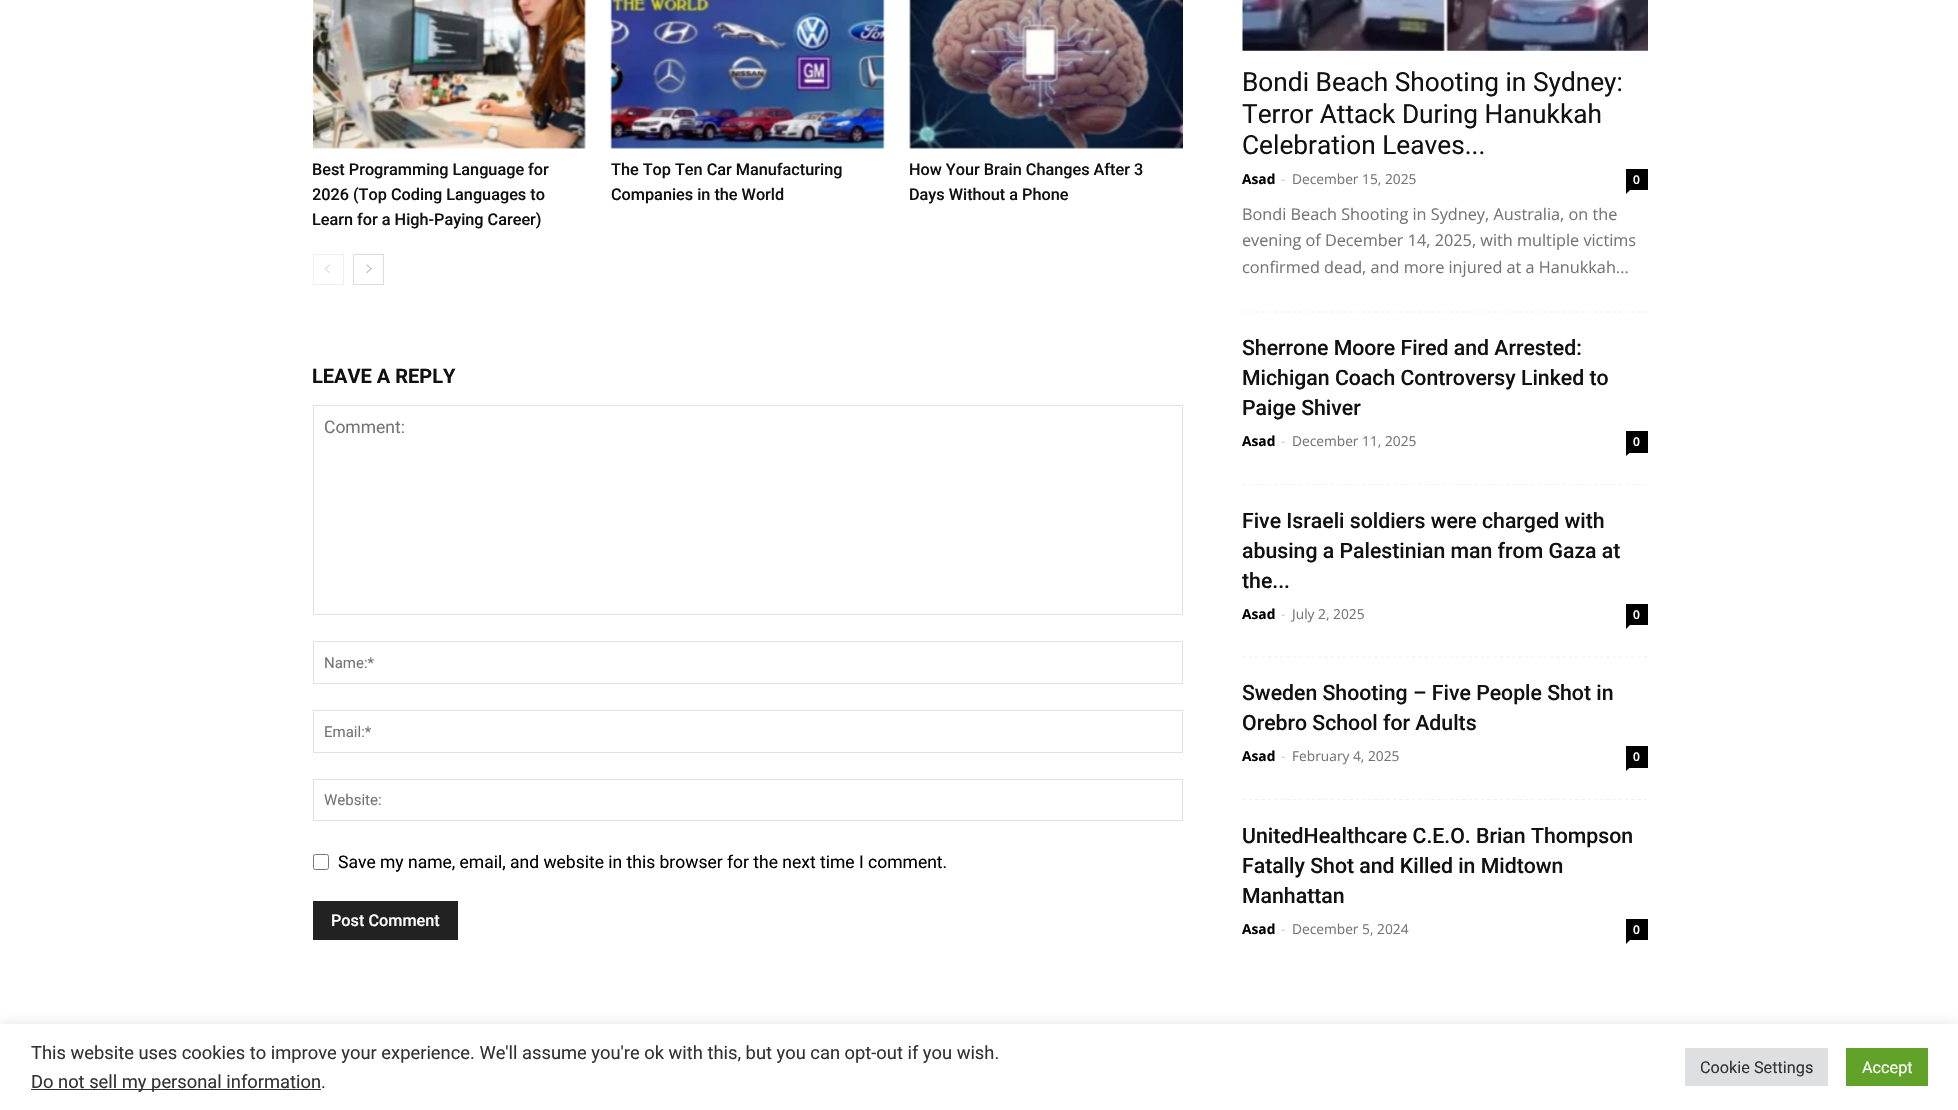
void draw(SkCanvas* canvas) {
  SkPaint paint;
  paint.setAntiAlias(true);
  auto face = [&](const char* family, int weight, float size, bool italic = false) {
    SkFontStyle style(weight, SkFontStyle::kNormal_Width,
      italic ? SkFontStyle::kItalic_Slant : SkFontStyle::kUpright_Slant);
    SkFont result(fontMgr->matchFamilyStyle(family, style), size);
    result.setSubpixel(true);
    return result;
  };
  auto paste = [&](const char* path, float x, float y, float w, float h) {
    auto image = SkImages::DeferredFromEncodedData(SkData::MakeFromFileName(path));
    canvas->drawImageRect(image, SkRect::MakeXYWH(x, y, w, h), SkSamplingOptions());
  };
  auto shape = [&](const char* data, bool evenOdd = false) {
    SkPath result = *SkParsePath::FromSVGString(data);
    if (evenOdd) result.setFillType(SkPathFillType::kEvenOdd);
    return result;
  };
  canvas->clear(0xffffffff);
  paste("img/1.png", 313, 0, 273, 149);
  paste("img/2.png", 610, 0, 275, 149);
  paste("img/3.png", 909, 0, 274, 149);
  paint.setStroke(true);
  paint.setStrokeWidth(1);
  paint.setColor(0xffeeeeee);
  canvas->drawRect(SkRect::MakeXYWH(313.5f, 254.5f, 30, 30), paint);
  paste("img/4.png", 324, 264, 6, 9);
  paint.setColor(0xffdcdcdc);
  canvas->drawRect(SkRect::MakeXYWH(353.5f, 254.5f, 30, 30), paint);
  paste("img/5.png", 366, 264, 6, 9);
  paint.setColor(0xffe1e1e1);
  canvas->drawRect(SkRect::MakeXYWH(313.5f, 405.5f, 869, 209), paint);
  canvas->drawRect(SkRect::MakeXYWH(313.5f, 641.5f, 869, 42), paint);
  canvas->drawRect(SkRect::MakeXYWH(313.5f, 710.5f, 869, 42), paint);
  canvas->drawRect(SkRect::MakeXYWH(313.5f, 779.5f, 869, 41), paint);
  paint.setColor(0xff767676);
  canvas->drawRoundRect(SkRect::MakeXYWH(313.5f, 854.5f, 15, 15), 2, 2, paint);
  paint.setStroke(false);
  paint.setColor(0xff222222);
  canvas->drawRect(SkRect::MakeXYWH(313, 901, 145, 39), paint);
  paint.setStroke(true);
  paint.setStrokeWidth(1.2f);
  paint.setColor(0xfff2f2f2);
  paint.setPathEffect(SkDashPathEffect::Make({{3.75f, 2.52f}}, 0));
  canvas->drawPath(shape("M1242.5 312H1647.5"), paint);
  paint.setPathEffect(nullptr);
  paste("img/6.png", 1242, 0, 406, 51);
  paint.setStroke(false);
  paint.setColor(0xff000000);
  canvas->drawRect(SkRect::MakeXYWH(1626, 169, 22, 21), paint);
  canvas->drawPath(shape("M1626 190H1630L1626 194Z"), paint);
  paint.setStroke(true);
  paint.setColor(0xfff2f2f2);
  paint.setPathEffect(SkDashPathEffect::Make({{3.75f, 2.52f}}, 0));
  canvas->drawPath(shape("M1242.5 484.5H1647.5"), paint);
  paint.setPathEffect(nullptr);
  paint.setStroke(false);
  paint.setColor(0xff000000);
  canvas->drawRect(SkRect::MakeXYWH(1626, 431, 22, 22), paint);
  canvas->drawPath(shape("M1626 452.5H1630L1626 456Z"), paint);
  paint.setStroke(true);
  paint.setColor(0xfff2f2f2);
  paint.setPathEffect(SkDashPathEffect::Make({{3.75f, 2.52f}}, 0));
  canvas->drawPath(shape("M1242.5 657H1647.5"), paint);
  paint.setPathEffect(nullptr);
  paint.setStroke(false);
  paint.setColor(0xff000000);
  canvas->drawRect(SkRect::MakeXYWH(1626, 604, 22, 21), paint);
  canvas->drawPath(shape("M1626 625H1630L1626 629Z"), paint);
  paint.setStroke(true);
  paint.setColor(0xfff2f2f2);
  paint.setPathEffect(SkDashPathEffect::Make({{3.75f, 2.52f}}, 0));
  canvas->drawPath(shape("M1242.5 799.5H1647.5"), paint);
  paint.setPathEffect(nullptr);
  paint.setStroke(false);
  paint.setColor(0xff000000);
  canvas->drawRect(SkRect::MakeXYWH(1626, 746, 22, 22), paint);
  canvas->drawPath(shape("M1626 767.5H1630L1626 771Z"), paint);
  canvas->drawRect(SkRect::MakeXYWH(1626, 919, 22, 21), paint);
  canvas->drawPath(shape("M1626 940H1630L1626 944Z"), paint);
  paint.setColor(0x4dacabab);
  paint.setMaskFilter(SkMaskFilter::MakeBlur(kNormal_SkBlurStyle, 6));
  canvas->drawRect(SkRect::MakeXYWH(0, 1023, 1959, 86), paint);
  paint.setMaskFilter(nullptr);
  {
    const struct { float x, y, w, h; SkColor color; } items[] = {
      {0, 1024, 1958, 86, 0xffffffff},
      {31, 1089, 290, 1, 0xff333333},
      {1685, 1048, 143, 38, 0xffdedfe0},
      {1846, 1048, 82, 38, 0xff61a229},
    };
    for (auto [x, y, w, h, color] : items) {
      paint.setColor(color);
      canvas->drawRect(SkRect::MakeXYWH(x, y, w, h), paint);
    }
  }
  auto f0 = face("Roboto", 500, 16.25f);
  paint.setColor(0xff111111);
  canvas->drawString("Best Programming Language for", 312, 175, f0, paint);
  canvas->save();
  canvas->clipRect(SkRect::MakeXYWH(313, 0, 870, 285));
  canvas->drawString("2026 (Top Coding Languages to", 312, 200, f0, paint);
  canvas->restore();
  {
    const struct { const char* s; float x, y; } items[] = {
      {"Learn for a High-Paying Career)", 312, 225},
      {"The Top Ten Car Manufacturing", 611, 175},
      {"Companies in the World", 611, 200},
      {"How Your Brain Changes After 3", 909, 175},
      {"Days Without a Phone", 909, 200},
    };
    for (auto [s, x, y] : items) {
      canvas->drawString(s, x, y, f0, paint);
    }
  }
  auto f1 = face("Roboto", 700, 20);
  canvas->drawString("LEAVE A REPLY", 312, 383, f1, paint);
  auto f2 = face("Roboto", 400, 17.5f);
  paint.setColor(0xff757575);
  canvas->drawString("Comment:", 324, 433, f2, paint);
  auto f3 = face("Roboto", 400, 15);
  {
    const struct { const char* s; float x, y; } items[] = {
      {"Name:*", 324, 668},
      {"Email:*", 324, 737},
      {"Website:", 324, 805},
    };
    for (auto [s, x, y] : items) {
      canvas->drawString(s, x, y, f3, paint);
    }
  }
  paint.setColor(0xff000000);
  canvas->drawString("Save my name, email, and website in this browser for the next time I comment.", 338, 868, f2, paint);
  paint.setColor(0xffffffff);
  canvas->drawString("Post Comment", 331, 926, f0, paint);
  auto f4 = face("Roboto", 400, 26.25f);
  paint.setColor(0xff111111);
  {
    const struct { const char* s; float x, y; } items[] = {
      {"Bondi Beach Shooting in Sydney:", 1242, 91},
      {"Terror Attack During Hanukkah", 1242, 123},
      {"Celebration Leaves...", 1242, 154},
    };
    for (auto [s, x, y] : items) {
      canvas->drawString(s, x, y, f4, paint);
    }
  }
  auto f5 = face("Open Sans", 700, 13.75f);
  paint.setColor(0xff000000);
  canvas->drawString("Asad", 1242, 184, f5, paint);
  auto f6 = face("Open Sans", 400, 13.75f);
  paint.setColor(0xffcccccc);
  canvas->drawString("-", 1281, 184, f6, paint);
  paint.setColor(0xff757575);
  canvas->drawString("December 15, 2025", 1292, 184, f6, paint);
  auto f7 = face("Open Sans", 600, 12);
  paint.setColor(0xffffffff);
  canvas->drawString("0", 1633, 184, f7, paint);
  auto f8 = face("Open Sans", 400, 16.25f);
  paint.setColor(0xff757575);
  {
    const struct { const char* s; float x, y; } items[] = {
      {"Bondi Beach Shooting in Sydney, Australia, on the", 1242, 220},
      {"evening of December 14, 2025, with multiple victims", 1242, 246},
      {"confirmed dead, and more injured at a Hanukkah...", 1242, 273},
    };
    for (auto [s, x, y] : items) {
      canvas->drawString(s, x, y, f8, paint);
    }
  }
  auto f9 = face("Roboto", 500, 21.25f);
  paint.setColor(0xff111111);
  {
    const struct { const char* s; float x, y; } items[] = {
      {"Sherrone Moore Fired and Arrested:", 1242, 355},
      {"Michigan Coach Controversy Linked to", 1242, 385},
      {"Paige Shiver", 1242, 415},
    };
    for (auto [s, x, y] : items) {
      canvas->drawString(s, x, y, f9, paint);
    }
  }
  paint.setColor(0xff000000);
  canvas->drawString("Asad", 1242, 446, f5, paint);
  paint.setColor(0xffcccccc);
  canvas->drawString("-", 1281, 446, f6, paint);
  paint.setColor(0xff757575);
  canvas->drawString("December 11, 2025", 1292, 446, f6, paint);
  paint.setColor(0xffffffff);
  canvas->drawString("0", 1633, 446, f7, paint);
  paint.setColor(0xff111111);
  {
    const struct { const char* s; float x, y; } items[] = {
      {"Five Israeli soldiers were charged with", 1242, 528},
      {"abusing a Palestinian man from Gaza at", 1242, 558},
      {"the...", 1242, 588},
    };
    for (auto [s, x, y] : items) {
      canvas->drawString(s, x, y, f9, paint);
    }
  }
  paint.setColor(0xff000000);
  canvas->drawString("Asad", 1242, 619, f5, paint);
  paint.setColor(0xffcccccc);
  canvas->drawString("-", 1281, 619, f6, paint);
  paint.setColor(0xff757575);
  canvas->drawString("July 2, 2025", 1292, 619, f6, paint);
  paint.setColor(0xffffffff);
  canvas->drawString("0", 1633, 619, f7, paint);
  paint.setColor(0xff111111);
  canvas->drawString("Sweden Shooting – Five People Shot in", 1242, 700, f9, paint);
  canvas->drawString("Orebro School for Adults", 1242, 730, f9, paint);
  paint.setColor(0xff000000);
  canvas->drawString("Asad", 1242, 761, f5, paint);
  paint.setColor(0xffcccccc);
  canvas->drawString("-", 1281, 761, f6, paint);
  paint.setColor(0xff757575);
  canvas->drawString("February 4, 2025", 1292, 761, f6, paint);
  paint.setColor(0xffffffff);
  canvas->drawString("0", 1633, 761, f7, paint);
  paint.setColor(0xff111111);
  {
    const struct { const char* s; float x, y; } items[] = {
      {"UnitedHealthcare C.E.O. Brian Thompson", 1242, 843},
      {"Fatally Shot and Killed in Midtown", 1242, 873},
      {"Manhattan", 1242, 903},
    };
    for (auto [s, x, y] : items) {
      canvas->drawString(s, x, y, f9, paint);
    }
  }
  paint.setColor(0xff000000);
  canvas->drawString("Asad", 1242, 934, f5, paint);
  paint.setColor(0xffcccccc);
  canvas->drawString("-", 1281, 934, f6, paint);
  paint.setColor(0xff757575);
  canvas->drawString("December 5, 2024", 1292, 934, f6, paint);
  paint.setColor(0xffffffff);
  canvas->drawString("0", 1633, 934, f7, paint);
  auto f10 = face("Roboto", 400, 18.33f);
  paint.setColor(0xff333333);
  canvas->drawString("This website uses cookies to improve your experience. We'll assume you're ok with this, but you can opt-out if you wish.", 31, 1059, f10, paint);
  canvas->drawString("Do not sell my personal information.", 31, 1088, f10, paint);
  auto f11 = face("Roboto", 400, 16.25f);
  canvas->drawString("Cookie Settings", 1700, 1073, f11, paint);
  paint.setColor(0xffffffff);
  canvas->drawString("Accept", 1862, 1073, f11, paint);
}
